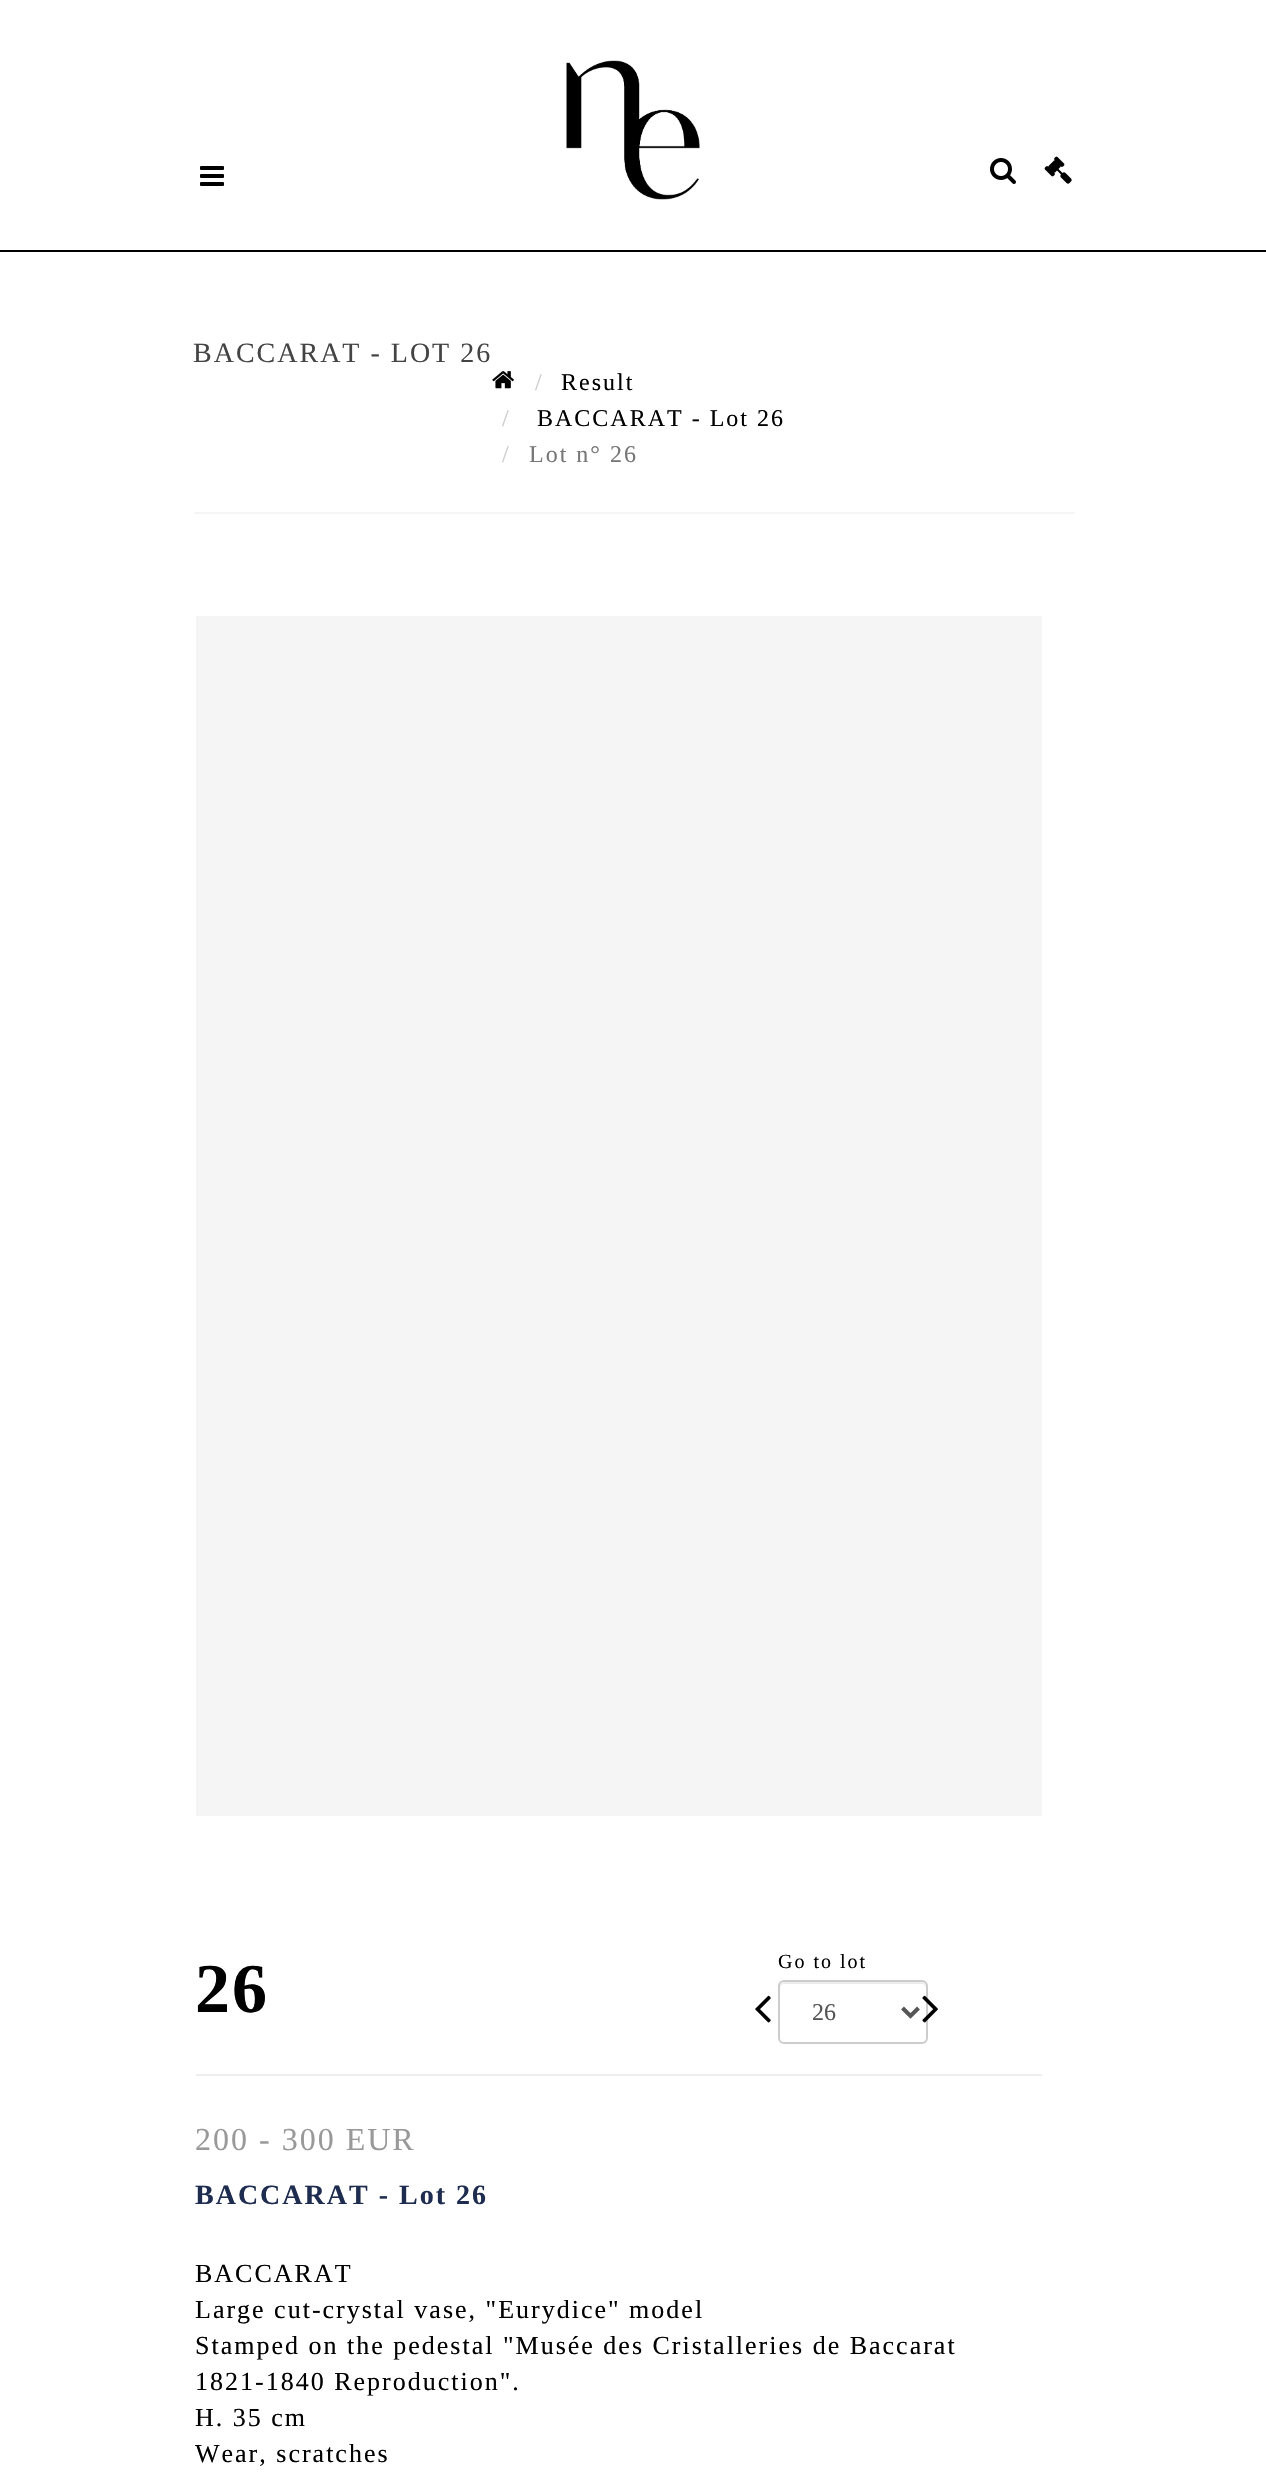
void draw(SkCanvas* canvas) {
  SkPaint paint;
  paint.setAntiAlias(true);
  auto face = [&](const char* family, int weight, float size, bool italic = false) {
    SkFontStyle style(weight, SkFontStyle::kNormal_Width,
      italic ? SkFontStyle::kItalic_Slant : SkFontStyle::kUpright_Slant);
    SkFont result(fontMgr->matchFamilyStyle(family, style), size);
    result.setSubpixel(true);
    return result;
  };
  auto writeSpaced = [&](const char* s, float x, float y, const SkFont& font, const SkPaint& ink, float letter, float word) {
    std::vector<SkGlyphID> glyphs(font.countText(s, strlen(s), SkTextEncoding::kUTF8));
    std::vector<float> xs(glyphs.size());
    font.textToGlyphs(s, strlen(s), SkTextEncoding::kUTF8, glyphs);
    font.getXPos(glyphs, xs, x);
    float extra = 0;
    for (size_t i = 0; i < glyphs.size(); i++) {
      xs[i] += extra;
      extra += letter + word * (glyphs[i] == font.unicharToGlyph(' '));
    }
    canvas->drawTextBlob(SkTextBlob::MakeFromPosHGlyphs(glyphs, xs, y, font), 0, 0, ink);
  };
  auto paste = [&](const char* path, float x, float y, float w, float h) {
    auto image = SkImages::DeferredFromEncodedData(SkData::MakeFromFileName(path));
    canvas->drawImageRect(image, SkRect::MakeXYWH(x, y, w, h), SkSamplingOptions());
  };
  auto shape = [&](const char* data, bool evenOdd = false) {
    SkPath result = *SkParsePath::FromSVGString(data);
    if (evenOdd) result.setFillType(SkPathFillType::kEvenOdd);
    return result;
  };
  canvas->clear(0xffffffff);
  paint.setColor(0xff000000);
  canvas->drawRect(SkRect::MakeXYWH(0, 250, 1266, 2), paint);
  paste("img/1.png", 200, 166, 24, 20);
  paste("img/2.png", 566, 60, 134, 140);
  paste("img/3.png", 990, 158, 26, 26);
  paste("img/4.png", 1044, 156, 28, 28);
  paint.setColor(0xfff5f5f5);
  canvas->drawRect(SkRect::MakeXYWH(194, 512, 880, 2), paint);
  paste("img/5.png", 492, 371, 22, 18);
  canvas->drawRect(SkRect::MakeXYWH(196, 616, 846, 1200), paint);
  paste("img/6.png", 755, 1995, 16, 28);
  paint.setColor(0xffececec);
  canvas->drawPath(shape("M784 1984H922C924 1984 926 1986 926 1988V1986C926 1984 924 1982 922 1982H784C782 1982 780 1984 780 1986V1988C780 1986 782 1984 784 1984Z"), paint);
  paint.setStroke(true);
  paint.setStrokeWidth(2);
  paint.setColor(0xffcccccc);
  canvas->drawRoundRect(SkRect::MakeXYWH(779, 1981, 148, 62), 5, 5, paint);
  paint.setStrokeWidth(4);
  paint.setColor(0xff555555);
  canvas->drawPath(shape("M902.5 2008L910.5 2016L918.5 2008"), paint);
  paste("img/7.png", 922, 1995, 16, 28);
  paint.setStroke(false);
  paint.setColor(0xffeeeeee);
  canvas->drawRect(SkRect::MakeXYWH(196, 2074, 846, 2), paint);
  auto f0 = face("Liberation Serif", 400, 28);
  paint.setColor(0xff444444);
  writeSpaced("BACCARAT - LOT 26", 193, 362, f0, paint, 2, 0);
  auto f1 = face("Liberation Serif", 400, 24);
  paint.setColor(0xffcccccc);
  writeSpaced("/", 535, 390, f1, paint, 2, 0);
  paint.setColor(0xff000000);
  writeSpaced("Result", 561, 390, f1, paint, 2, 0);
  paint.setColor(0xffcccccc);
  writeSpaced("/", 502, 426, f1, paint, 2, 0);
  paint.setColor(0xff000000);
  writeSpaced("BACCARAT - Lot 26", 537, 426, f1, paint, 2, 0);
  paint.setColor(0xffcccccc);
  writeSpaced("/", 502, 462, f1, paint, 2, 0);
  paint.setColor(0xff777777);
  writeSpaced("Lot n° 26", 529, 462, f1, paint, 2, 0);
  auto f2 = face("Liberation Serif", 700, 70);
  paint.setColor(0xff000000);
  writeSpaced("26", 195, 2012, f2, paint, 2, 0);
  auto f3 = face("Liberation Serif", 400, 20);
  writeSpaced("Go to lot", 778, 1968, f3, paint, 2, 0);
  paint.setColor(0xff555555);
  canvas->drawString("26", 812, 2020, f1, paint);
  auto f4 = face("Liberation Serif", 400, 32);
  paint.setColor(0xff999999);
  writeSpaced("200 - 300 EUR", 195, 2150, f4, paint, 2, 0);
  auto f5 = face("Liberation Serif", 700, 28);
  paint.setColor(0xff1d2c4f);
  writeSpaced("BACCARAT - Lot 26", 195, 2204, f5, paint, 2, 0);
  auto f6 = face("Liberation Serif", 400, 26);
  paint.setColor(0xff000000);
  {
    const struct { const char* s; float x, y; } items[] = {
      {"BACCARAT", 195, 2282},
      {"Large cut-crystal vase, \"Eurydice\" model", 195, 2318},
      {"Stamped on the pedestal \"Musée des Cristalleries de Baccarat", 195, 2354},
      {"1821-1840 Reproduction\".", 195, 2390},
      {"H. 35 cm", 195, 2426},
      {"Wear, scratches", 195, 2462},
    };
    for (auto [s, x, y] : items) {
      writeSpaced(s, x, y, f6, paint, 2, 0);
    }
  }
}
